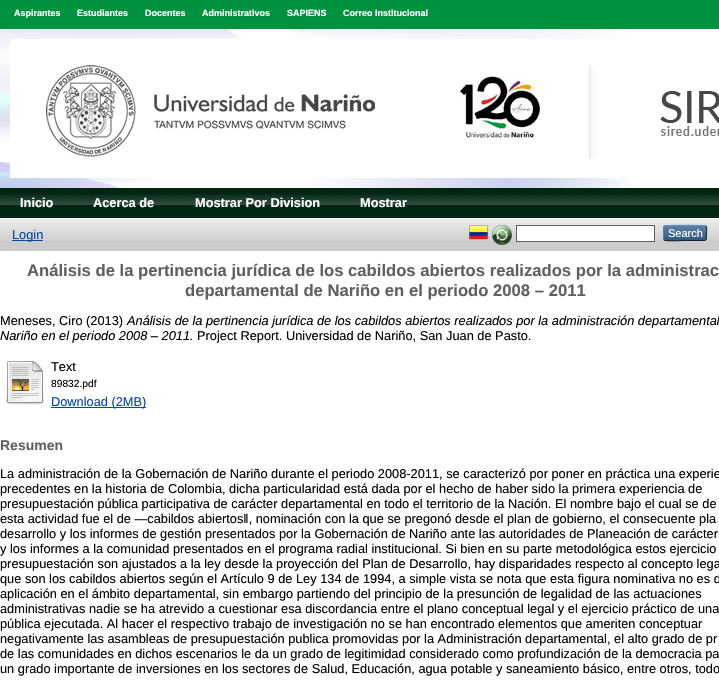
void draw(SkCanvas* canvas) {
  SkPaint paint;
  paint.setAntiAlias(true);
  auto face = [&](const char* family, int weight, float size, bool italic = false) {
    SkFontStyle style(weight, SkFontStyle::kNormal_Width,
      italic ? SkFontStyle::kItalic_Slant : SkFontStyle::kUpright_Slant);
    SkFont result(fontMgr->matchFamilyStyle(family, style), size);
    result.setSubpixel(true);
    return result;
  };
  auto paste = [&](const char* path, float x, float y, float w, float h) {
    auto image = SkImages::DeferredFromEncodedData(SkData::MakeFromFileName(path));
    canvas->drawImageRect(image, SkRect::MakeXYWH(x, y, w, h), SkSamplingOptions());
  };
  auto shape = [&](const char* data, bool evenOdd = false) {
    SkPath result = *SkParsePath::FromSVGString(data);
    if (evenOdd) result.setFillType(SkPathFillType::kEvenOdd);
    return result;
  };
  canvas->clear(0xffffffff);
  paint.setColor(0xff00923f);
  canvas->drawRect(SkRect::MakeXYWH(0, 0, 719, 29), paint);
  paste("img/1.png", 0, 29, 632, 159);
  paste("img/2.png", 10, 39, 709, 139);
  paint.setColor(0xff012511);
  canvas->drawRect(SkRect::MakeXYWH(0, 188, 719, 30), paint);
  paste("img/3.png", 0, 194, 719, 11);
  paint.setColor(0xffcccccc);
  canvas->drawRect(SkRect::MakeXYWH(0, 219, 719, 32), paint);
  paste("img/4.png", 0, 219, 719, 22);
  paint.setColor(0xff0645ad);
  canvas->drawRect(SkRect::MakeXYWH(12, 240, 31, 1), paint);
  paste("img/5.png", 469, 225, 19, 15);
  paste("img/6.png", 492, 225, 20, 20);
  paint.setColor(0xffffffff);
  canvas->drawRect(SkRect::MakeXYWH(516.5f, 225.5f, 138, 16), paint);
  paint.setStroke(true);
  paint.setStrokeWidth(1);
  paint.setColor(0xff606060);
  canvas->drawRect(SkRect::MakeXYWH(516.5f, 225.5f, 138, 16), paint);
  paint.setStroke(false);
  paint.setColor(0xff1f4f76);
  canvas->drawRoundRect(SkRect::MakeXYWH(663, 225, 44, 16), 3, 3, paint);
  paste("img/7.png", 663, 225, 44, 16);
  paint.setStroke(true);
  paint.setColor(0xff5b97c7);
  canvas->drawPath(shape("M664 226C665.5 225 704.5 225 706 226"), paint);
  paint.setColor(0xff0d2131);
  canvas->drawPath(shape("M706 226C707.5 228 706.5 231 706.5 233C706.5 241.5 707 240.5 697.5 240.5H685C682 240.5 666 241.5 664 240"), paint);
  paint.setColor(0xff5287b3);
  canvas->drawPath(shape("M664 240C663 238.5 663.5 234.5 663.5 233C663.5 231.5 663 227.5 664 226"), paint);
  paste("img/8.png", 5, 361, 40, 44);
  paint.setStroke(false);
  paint.setColor(0xff0645ad);
  canvas->drawRect(SkRect::MakeXYWH(51, 407, 95, 1), paint);
  auto f0 = face("Liberation Sans", 700, 9);
  paint.setColor(0xffffffff);
  {
    const struct { const char* s; float x, y; } items[] = {
      {"Aspirantes", 14, 16},
      {"Estudiantes", 77, 16},
      {"Docentes", 145, 16},
      {"Administrativos", 202, 16},
      {"SAPIENS", 287, 16},
      {"Correo Institucional", 343, 16},
    };
    for (auto [s, x, y] : items) {
      canvas->drawString(s, x, y, f0, paint);
    }
  }
  auto f1 = face("Liberation Sans", 700, 12.8f);
  {
    const struct { const char* s; float x, y; } items[] = {
      {"Inicio", 20, 207},
      {"Acerca de", 93, 207},
      {"Mostrar Por Division", 195, 207},
      {"Mostrar", 360, 207},
    };
    for (auto [s, x, y] : items) {
      canvas->drawString(s, x, y, f1, paint);
    }
  }
  auto f2 = face("Liberation Sans", 400, 12.8f);
  paint.setColor(0xff0645ad);
  canvas->drawString("Login", 12, 239, f2, paint);
  auto f3 = face("Liberation Sans", 400, 11);
  paint.setColor(0xffffffff);
  canvas->drawString("Search", 668, 237, f3, paint);
  auto f4 = face("Liberation Sans", 700, 16.65f);
  paint.setColor(0xff606060);
  canvas->drawString("Análisis de la pertinencia jurídica de los cabildos abiertos realizados por la administrac", 27, 276, f4, paint);
  canvas->drawString("departamental de Nariño en el periodo 2008 – 2011", 185, 296, f4, paint);
  paint.setColor(0xff000000);
  canvas->drawString("Meneses, Ciro (2013)", 0, 325, f2, paint);
  auto f5 = face("Liberation Sans", 400, 12.8f, true);
  canvas->drawString("Análisis de la pertinencia jurídica de los cabildos abiertos realizados por la administración departamental", 127, 325, f5, paint);
  canvas->drawString("Nariño en el periodo 2008 – 2011.", 0, 340, f5, paint);
  canvas->drawString("Project Report. Universidad de Nariño, San Juan de Pasto.", 197, 340, f2, paint);
  canvas->drawString("Text", 51, 371, f2, paint);
  auto f6 = face("Liberation Sans", 400, 10.25f);
  canvas->drawString("89832.pdf", 51, 387, f6, paint);
  paint.setColor(0xff0645ad);
  canvas->drawString("Download (2MB)", 51, 406, f2, paint);
  auto f7 = face("Liberation Sans", 700, 14);
  paint.setColor(0xff606060);
  canvas->drawString("Resumen", 0, 450, f7, paint);
  paint.setColor(0xff000000);
  {
    const struct { const char* s; float x, y; } items[] = {
      {"La administración de la Gobernación de Nariño durante el periodo 2008-2011, se caracterizó por poner en práctica una experie", 0, 478},
      {"precedentes en la historia de Colombia, dicha particularidad está dada por el hecho de haber sido la primera experiencia de", 0, 493},
      {"presupuestación pública participativa de carácter departamental en todo el territorio de la Nación. El nombre bajo el cual se de", 0, 508},
      {"esta actividad fue el de ―cabildos abiertos‖, nominación con la que se pregonó desde el plan de gobierno, el consecuente pla", 0, 523},
      {"desarrollo y los informes de gestión presentados por la Gobernación de Nariño ante las autoridades de Planeación de carácter", 0, 538},
      {"y los informes a la comunidad presentados en el programa radial institucional. Si bien en su parte metodológica estos ejercicio", 0, 553},
      {"presupuestación son ajustados a la ley desde la proyección del Plan de Desarrollo, hay disparidades respecto al concepto lega", 0, 568},
      {"que son los cabildos abiertos según el Artículo 9 de Ley 134 de 1994, a simple vista se nota que esta figura nominativa no es d", 0, 583},
      {"aplicación en el ámbito departamental, sin embargo partiendo del principio de la presunción de legalidad de las actuaciones", 0, 598},
      {"administrativas nadie se ha atrevido a cuestionar esa discordancia entre el plano conceptual legal y el ejercicio práctico de una", 0, 613},
      {"pública ejecutada. Al hacer el respectivo trabajo de investigación no se han encontrado elementos que ameriten conceptuar", 0, 628},
      {"negativamente las asambleas de presupuestación publica promovidas por la Administración departamental, el alto grado de pr", 0, 643},
      {"de las comunidades en dichos escenarios le da un grado de legitimidad considerado como profundización de la democracia pa", 0, 658},
      {"un grado importante de inversiones en los sectores de Salud, Educación, agua potable y saneamiento básico, entre otros, todo", 0, 673},
    };
    for (auto [s, x, y] : items) {
      canvas->drawString(s, x, y, f2, paint);
    }
  }
}
